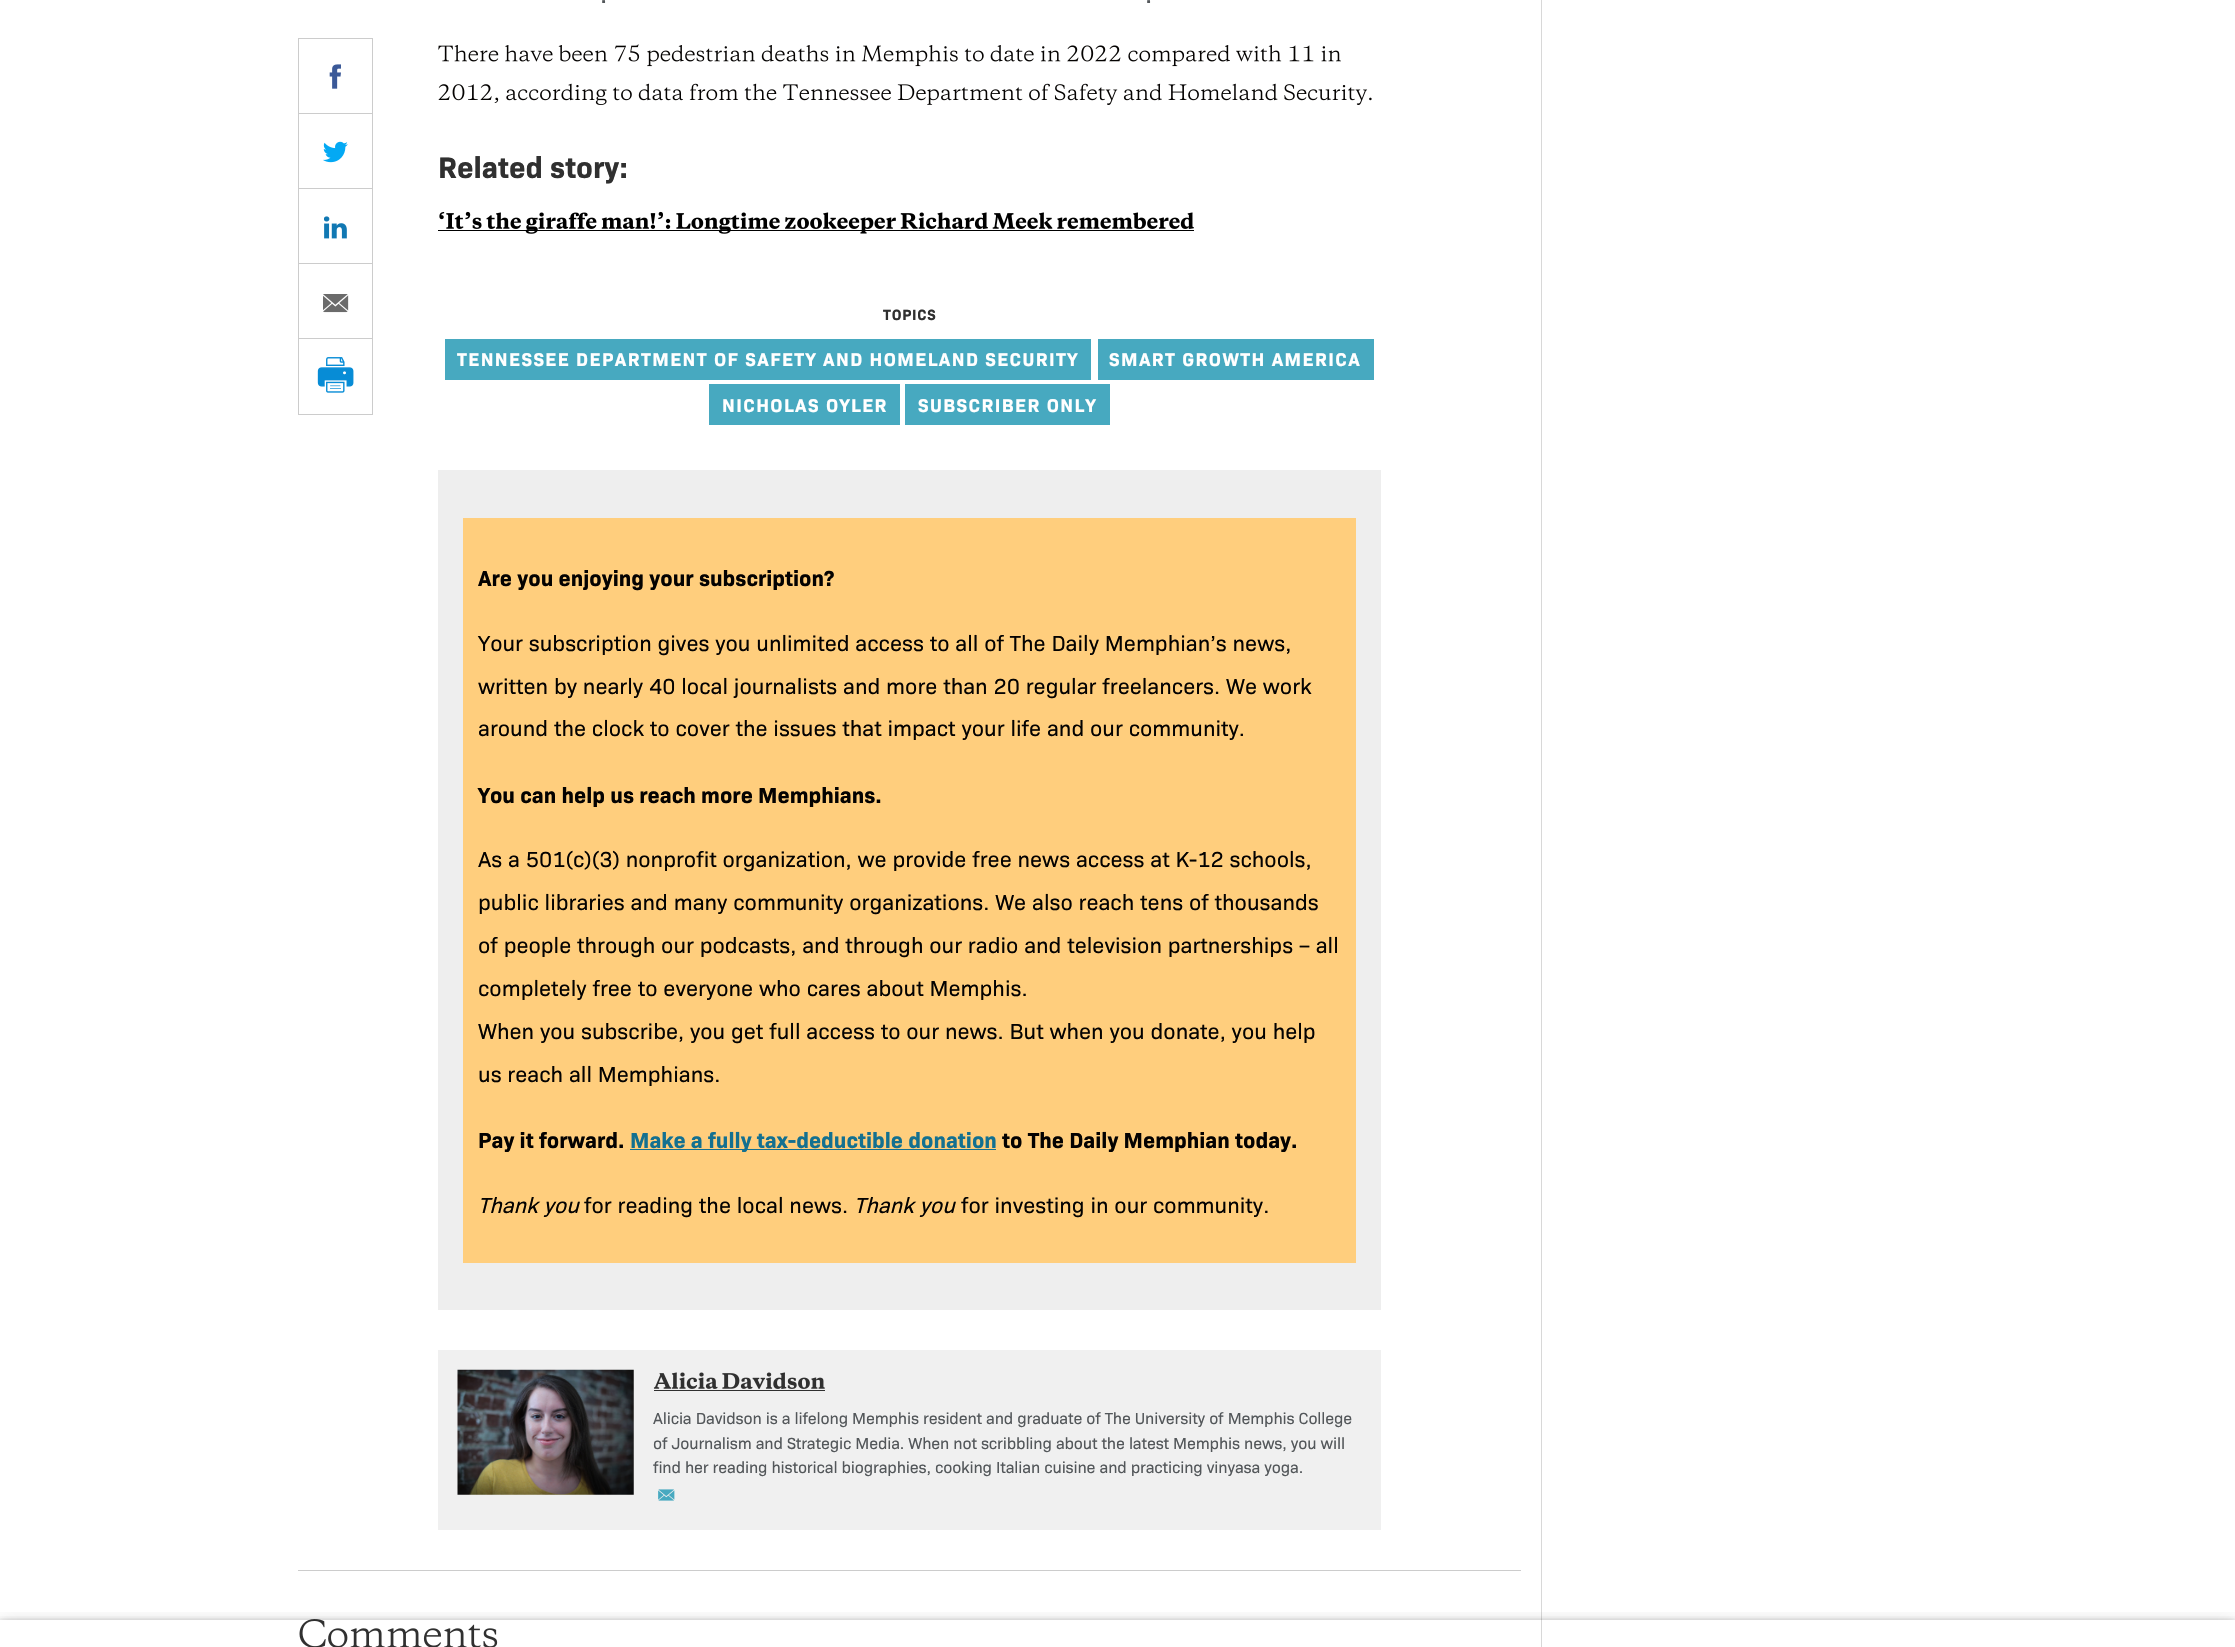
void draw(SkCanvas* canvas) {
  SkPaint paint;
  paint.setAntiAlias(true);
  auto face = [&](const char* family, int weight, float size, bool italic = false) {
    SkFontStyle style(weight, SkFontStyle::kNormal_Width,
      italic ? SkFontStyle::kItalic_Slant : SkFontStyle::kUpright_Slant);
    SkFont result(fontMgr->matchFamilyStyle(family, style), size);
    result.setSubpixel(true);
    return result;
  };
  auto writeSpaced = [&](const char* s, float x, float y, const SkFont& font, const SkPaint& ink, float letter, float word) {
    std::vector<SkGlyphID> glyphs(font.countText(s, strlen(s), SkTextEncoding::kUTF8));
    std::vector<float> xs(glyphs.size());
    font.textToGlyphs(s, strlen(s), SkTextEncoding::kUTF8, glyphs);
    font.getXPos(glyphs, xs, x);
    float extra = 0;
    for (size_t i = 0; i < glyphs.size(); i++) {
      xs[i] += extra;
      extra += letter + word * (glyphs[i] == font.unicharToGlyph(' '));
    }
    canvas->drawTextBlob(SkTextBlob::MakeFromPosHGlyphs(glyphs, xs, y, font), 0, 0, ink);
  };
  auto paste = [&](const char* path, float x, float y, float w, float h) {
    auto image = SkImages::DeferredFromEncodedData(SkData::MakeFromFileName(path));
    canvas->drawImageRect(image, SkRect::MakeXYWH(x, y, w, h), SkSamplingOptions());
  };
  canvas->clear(0xffffffff);
  paint.setColor(0xffd8d8d8);
  canvas->drawRect(SkRect::MakeXYWH(1541, 0, 1, 1647), paint);
  paint.setStroke(true);
  paint.setStrokeWidth(1);
  paint.setColor(0xffcccccc);
  canvas->drawRect(SkRect::MakeXYWH(298.5f, 38.5f, 74, 376), paint);
  paint.setStroke(false);
  canvas->drawRect(SkRect::MakeXYWH(298, 113, 75, 1), paint);
  paste("img/1.png", 329, 64, 12, 25);
  canvas->drawRect(SkRect::MakeXYWH(298, 188, 75, 1), paint);
  paste("img/2.png", 323, 141, 25, 22);
  canvas->drawRect(SkRect::MakeXYWH(298, 263, 75, 1), paint);
  paste("img/3.png", 324, 216, 23, 23);
  canvas->drawRect(SkRect::MakeXYWH(298, 338, 75, 1), paint);
  paste("img/4.png", 323, 294, 26, 19);
  paste("img/5.png", 317, 357, 37, 36);
  paste("img/6.png", 438, 44, 903, 23);
  paste("img/7.png", 438, 83, 934, 22);
  paint.setColor(0xff000000);
  canvas->drawRect(SkRect::MakeXYWH(438, 230, 756, 1), paint);
  paste("img/8.png", 439, 211, 755, 23);
  {
    const struct { float x, y, w, h; SkColor color; } items[] = {
      {445, 339, 646, 41, 0xff47a9c0},
      {1098, 339, 276, 41, 0xff47a9c0},
      {709, 384, 191, 41, 0xff47a9c0},
      {905, 384, 205, 41, 0xff47a9c0},
      {438, 470, 943, 840, 0xffeeeeee},
      {463, 518, 893, 745, 0xffffce7d},
      {630, 1149, 366, 1, 0xff137090},
      {438, 1350, 943, 180, 0xfff0f0f0},
    };
    for (auto [x, y, w, h, color] : items) {
      paint.setColor(color);
      canvas->drawRect(SkRect::MakeXYWH(x, y, w, h), paint);
    }
  }
  paste("img/9.png", 457, 1369, 177, 126);
  paste("img/10.png", 653, 1372, 172, 17);
  paint.setColor(0xff303030);
  canvas->drawRect(SkRect::MakeXYWH(654, 1390, 171, 1), paint);
  paste("img/11.png", 658, 1489, 17, 12);
  paint.setColor(0xffcccccc);
  canvas->drawRect(SkRect::MakeXYWH(298, 1570, 1223, 1), paint);
  paste("img/12.png", 299, 1619, 199, 28);
  canvas->save();
  canvas->clipRect(SkRect::MakeXYWH(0, 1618, 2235, 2));
  paint.setColor(0x1a000000);
  paint.setMaskFilter(SkMaskFilter::MakeBlur(kNormal_SkBlurStyle, 2.5f));
  canvas->drawRect(SkRect::MakeXYWH(0, 1620, 2235, 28), paint);
  paint.setMaskFilter(nullptr);
  canvas->restore();
  canvas->save();
  canvas->clipRect(SkRect::MakeXYWH(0, 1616, 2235, 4));
  paint.setMaskFilter(SkMaskFilter::MakeBlur(kNormal_SkBlurStyle, 5));
  canvas->drawRect(SkRect::MakeXYWH(0, 1620, 2235, 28), paint);
  paint.setMaskFilter(nullptr);
  canvas->restore();
  canvas->save();
  canvas->clipRect(SkRect::MakeXYWH(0, 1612, 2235, 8));
  paint.setMaskFilter(SkMaskFilter::MakeBlur(kNormal_SkBlurStyle, 10));
  canvas->drawRect(SkRect::MakeXYWH(0, 1620, 2235, 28), paint);
  paint.setMaskFilter(nullptr);
  canvas->restore();
  auto f0 = face("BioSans", 700, 18);
  paint.setColor(0xff53575a);
  canvas->drawString(".", 601, 3, f0, paint);
  canvas->drawString(".", 1146, 3, f0, paint);
  auto f1 = face("BioSans", 700, 30);
  paint.setColor(0xff303030);
  canvas->drawString("Related story:", 438, 178, f1, paint);
  auto f2 = face("BioSans", 700, 15);
  writeSpaced("TOPICS", 883, 320, f2, paint, 0.75f, 0);
  auto f3 = face("BioSans", 700, 18.75f);
  paint.setColor(0xffffffff);
  {
    const struct { const char* s; float x, y; } items[] = {
      {"TENNESSEE DEPARTMENT OF SAFETY AND HOMELAND SECURITY", 457, 366},
      {"SMART GROWTH AMERICA", 1109, 366},
      {"NICHOLAS OYLER", 722, 412},
      {"SUBSCRIBER ONLY", 918, 412},
    };
    for (auto [s, x, y] : items) {
      writeSpaced(s, x, y, f3, paint, 1.4f, 0);
    }
  }
  auto f4 = face("BioSans", 700, 22);
  paint.setColor(0xff040201);
  canvas->drawString("Are you enjoying your subscription?", 478, 586, f4, paint);
  auto f5 = face("BioSans", 400, 22);
  {
    const struct { const char* s; float x, y; } items[] = {
      {"Your subscription gives you unlimited access to all of The Daily Memphian’s news,", 478, 651},
      {"written by nearly 40 local journalists and more than 20 regular freelancers. We work", 478, 694},
      {"around the clock to cover the issues that impact your life and our community.", 478, 736},
    };
    for (auto [s, x, y] : items) {
      canvas->drawString(s, x, y, f5, paint);
    }
  }
  canvas->drawString("You can help us reach more Memphians.", 478, 803, f4, paint);
  {
    const struct { const char* s; float x, y; } items[] = {
      {"As a 501(c)(3) nonprofit organization, we provide free news access at K-12 schools,", 478, 867},
      {"public libraries and many community organizations. We also reach tens of thousands", 478, 910},
      {"of people through our podcasts, and through our radio and television partnerships – all", 478, 953},
      {"completely free to everyone who cares about Memphis.", 478, 996},
      {"When you subscribe, you get full access to our news. But when you donate, you help", 478, 1039},
      {"us reach all Memphians.", 478, 1082},
    };
    for (auto [s, x, y] : items) {
      canvas->drawString(s, x, y, f5, paint);
    }
  }
  canvas->drawString("Pay it forward.", 478, 1148, f4, paint);
  paint.setColor(0xff137090);
  canvas->drawString("Make a fully tax-deductible donation", 630, 1148, f4, paint);
  paint.setColor(0xff040201);
  canvas->drawString("to The Daily Memphian today.", 1002, 1148, f4, paint);
  auto f6 = face("BioSans", 400, 22, true);
  canvas->drawString("Thank you", 478, 1213, f6, paint);
  canvas->drawString("for reading the local news.", 584, 1213, f5, paint);
  canvas->drawString("Thank you", 854, 1213, f6, paint);
  canvas->drawString("for investing in our community.", 961, 1213, f5, paint);
  auto f7 = face("BioSans", 400, 16.25f);
  paint.setColor(0xff53575a);
  {
    const struct { const char* s; float x, y; } items[] = {
      {"Alicia Davidson is a lifelong Memphis resident and graduate of The University of Memphis College", 653, 1424},
      {"of Journalism and Strategic Media. When not scribbling about the latest Memphis news, you will", 653, 1449},
      {"find her reading historical biographies, cooking Italian cuisine and practicing vinyasa yoga.", 653, 1473},
    };
    for (auto [s, x, y] : items) {
      writeSpaced(s, x, y, f7, paint, -0.15f, 0);
    }
  }
}
